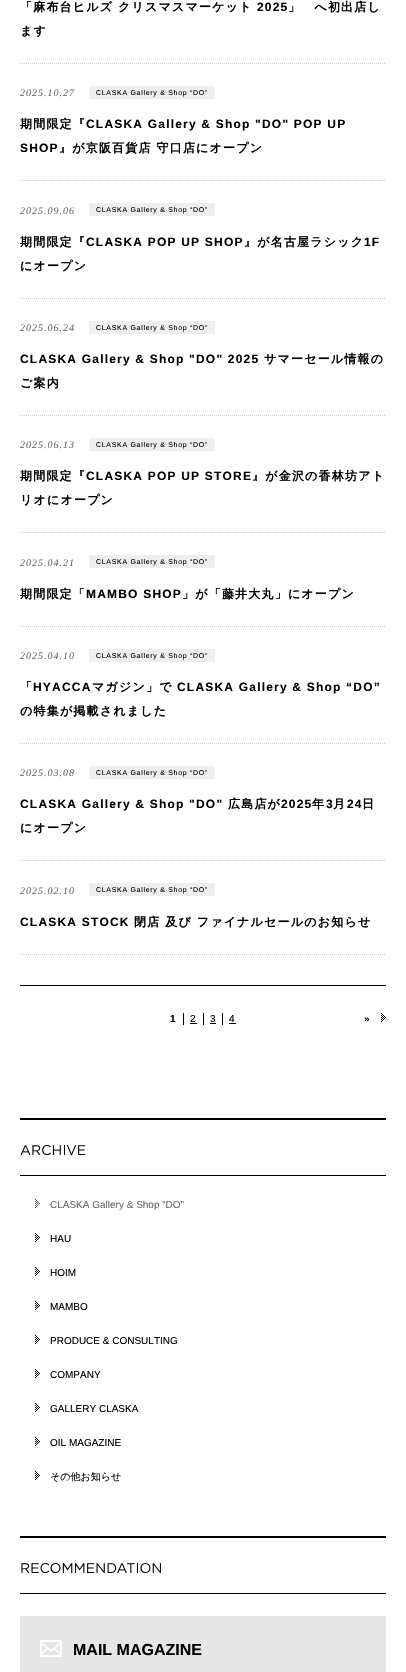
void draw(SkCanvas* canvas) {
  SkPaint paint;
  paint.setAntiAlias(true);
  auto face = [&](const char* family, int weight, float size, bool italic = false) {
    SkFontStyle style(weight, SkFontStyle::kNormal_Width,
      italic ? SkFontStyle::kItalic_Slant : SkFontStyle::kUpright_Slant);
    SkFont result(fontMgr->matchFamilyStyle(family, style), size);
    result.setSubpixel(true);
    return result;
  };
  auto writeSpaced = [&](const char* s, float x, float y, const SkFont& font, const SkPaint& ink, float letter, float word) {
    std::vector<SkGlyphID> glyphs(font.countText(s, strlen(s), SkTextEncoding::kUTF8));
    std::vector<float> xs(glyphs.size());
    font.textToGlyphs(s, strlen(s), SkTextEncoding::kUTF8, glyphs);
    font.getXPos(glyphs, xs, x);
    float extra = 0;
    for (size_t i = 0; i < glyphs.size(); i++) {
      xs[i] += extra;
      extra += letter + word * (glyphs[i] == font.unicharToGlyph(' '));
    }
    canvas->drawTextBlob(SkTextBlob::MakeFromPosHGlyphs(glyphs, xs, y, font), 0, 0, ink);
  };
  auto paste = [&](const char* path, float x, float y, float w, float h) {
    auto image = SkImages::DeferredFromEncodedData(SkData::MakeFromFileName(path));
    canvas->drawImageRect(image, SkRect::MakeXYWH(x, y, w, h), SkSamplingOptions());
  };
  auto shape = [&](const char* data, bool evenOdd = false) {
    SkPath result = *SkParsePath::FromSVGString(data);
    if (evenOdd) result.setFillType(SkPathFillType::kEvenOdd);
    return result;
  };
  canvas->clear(0xffffffff);
  paint.setStroke(true);
  paint.setStrokeWidth(1);
  paint.setColor(0xffcccccc);
  paint.setPathEffect(SkDashPathEffect::Make({{1, 1}}, 0));
  canvas->drawPath(shape("M20 63.5H386"), paint);
  paint.setPathEffect(nullptr);
  paint.setPathEffect(SkDashPathEffect::Make({{1, 1}}, 0));
  canvas->drawPath(shape("M20 180.5H386"), paint);
  paint.setPathEffect(nullptr);
  paint.setStroke(false);
  paint.setColor(0xffeeeeee);
  canvas->drawRect(SkRect::MakeXYWH(89, 86, 126, 13), paint);
  paint.setStroke(true);
  paint.setColor(0xffcccccc);
  paint.setPathEffect(SkDashPathEffect::Make({{1, 1}}, 0));
  canvas->drawPath(shape("M20 298.5H386"), paint);
  paint.setPathEffect(nullptr);
  paint.setStroke(false);
  paint.setColor(0xffeeeeee);
  canvas->drawRect(SkRect::MakeXYWH(89, 203, 126, 13), paint);
  paint.setStroke(true);
  paint.setColor(0xffcccccc);
  paint.setPathEffect(SkDashPathEffect::Make({{1, 1}}, 0));
  canvas->drawPath(shape("M20 415.5H386"), paint);
  paint.setPathEffect(nullptr);
  paint.setStroke(false);
  paint.setColor(0xffeeeeee);
  canvas->drawRect(SkRect::MakeXYWH(89, 321, 126, 13), paint);
  paint.setStroke(true);
  paint.setColor(0xffcccccc);
  paint.setPathEffect(SkDashPathEffect::Make({{1, 1}}, 0));
  canvas->drawPath(shape("M20 532.5H386"), paint);
  paint.setPathEffect(nullptr);
  paint.setStroke(false);
  paint.setColor(0xffeeeeee);
  canvas->drawRect(SkRect::MakeXYWH(89, 438, 126, 13), paint);
  paint.setStroke(true);
  paint.setColor(0xffcccccc);
  paint.setPathEffect(SkDashPathEffect::Make({{1, 1}}, 0));
  canvas->drawPath(shape("M20 626.5H386"), paint);
  paint.setPathEffect(nullptr);
  paint.setStroke(false);
  paint.setColor(0xffeeeeee);
  canvas->drawRect(SkRect::MakeXYWH(89, 555, 126, 13), paint);
  paint.setStroke(true);
  paint.setColor(0xffcccccc);
  paint.setPathEffect(SkDashPathEffect::Make({{1, 1}}, 0));
  canvas->drawPath(shape("M20 743.5H386"), paint);
  paint.setPathEffect(nullptr);
  paint.setStroke(false);
  paint.setColor(0xffeeeeee);
  canvas->drawRect(SkRect::MakeXYWH(89, 649, 126, 13), paint);
  paint.setStroke(true);
  paint.setColor(0xffcccccc);
  paint.setPathEffect(SkDashPathEffect::Make({{1, 1}}, 0));
  canvas->drawPath(shape("M20 860.5H386"), paint);
  paint.setPathEffect(nullptr);
  paint.setStroke(false);
  paint.setColor(0xffeeeeee);
  canvas->drawRect(SkRect::MakeXYWH(89, 766, 126, 13), paint);
  paint.setStroke(true);
  paint.setColor(0xffcccccc);
  paint.setPathEffect(SkDashPathEffect::Make({{1, 1}}, 0));
  canvas->drawPath(shape("M20 954.5H386"), paint);
  paint.setPathEffect(nullptr);
  paint.setStroke(false);
  {
    const struct { float x, y, w, h; SkColor color; } items[] = {
      {89, 883, 126, 13, 0xffeeeeee},
      {20, 985, 366, 1, 0xff000000},
      {183, 1013, 1, 12, 0xff000000},
      {190, 1023, 7, 1, 0xff000000},
      {203, 1013, 1, 12, 0xff000000},
      {210, 1023, 6, 1, 0xff000000},
      {222, 1013, 1, 12, 0xff000000},
      {229, 1023, 7, 1, 0xff000000},
    };
    for (auto [x, y, w, h, color] : items) {
      paint.setColor(color);
      canvas->drawRect(SkRect::MakeXYWH(x, y, w, h), paint);
    }
  }
  paste("img/1.png", 381, 1013, 5, 9);
  canvas->drawRect(SkRect::MakeXYWH(20, 1118, 366, 2), paint);
  canvas->drawRect(SkRect::MakeXYWH(20, 1175, 366, 1), paint);
  paste("img/2.png", 20, 1145, 66, 11);
  paste("img/3.png", 35, 1199, 5, 9);
  paste("img/1.png", 35, 1233, 5, 9);
  paste("img/1.png", 35, 1267, 5, 9);
  paste("img/1.png", 35, 1301, 5, 9);
  paste("img/1.png", 35, 1335, 5, 9);
  paste("img/1.png", 35, 1369, 5, 9);
  paste("img/1.png", 35, 1403, 5, 9);
  paste("img/1.png", 35, 1437, 5, 9);
  paste("img/1.png", 35, 1471, 5, 9);
  canvas->drawRect(SkRect::MakeXYWH(20, 1536, 366, 2), paint);
  canvas->drawRect(SkRect::MakeXYWH(20, 1593, 366, 1), paint);
  paste("img/4.png", 21, 1563, 140, 11);
  paint.setColor(0xffe6e6e6);
  canvas->drawRect(SkRect::MakeXYWH(20, 1616, 366, 56), paint);
  paste("img/5.png", 40, 1640, 22, 17);
  auto f0 = face("WenQuanYi Zen Hei", 700, 12);
  paint.setColor(0xff000000);
  writeSpaced("「麻布台ヒルズ クリスマスマーケット", 20, 11, f0, paint, 1.2f, 0);
  auto f1 = face("Liberation Sans", 700, 12);
  writeSpaced("2025", 257, 11, f1, paint, 1.2f, 0);
  writeSpaced("」　へ初出店し", 288, 11, f0, paint, 1.2f, 0);
  writeSpaced("ます", 20, 35, f0, paint, 1.2f, 0);
  auto f2 = face("Liberation Serif", 400, 10, true);
  paint.setColor(0xff666666);
  writeSpaced("2025.10.27", 20, 96, f2, paint, 1, 0);
  auto f3 = face("Liberation Sans", 400, 7);
  paint.setColor(0xff000000);
  writeSpaced("CLASKA Gallery & Shop “DO”", 96, 95, f3, paint, 0.7f, 0);
  writeSpaced("期間限定『", 20, 128, f0, paint, 1.2f, 0);
  writeSpaced("CLASKA Gallery & Shop \"DO\" POP UP", 86, 128, f1, paint, 1.2f, 0);
  writeSpaced("SHOP", 20, 152, f1, paint, 1.2f, 0);
  writeSpaced("』が京阪百貨店 守口店にオープン", 59, 152, f0, paint, 1.2f, 0);
  paint.setColor(0xff666666);
  writeSpaced("2025.09.06", 20, 214, f2, paint, 1, 0);
  paint.setColor(0xff000000);
  writeSpaced("CLASKA Gallery & Shop “DO”", 96, 212, f3, paint, 0.7f, 0);
  writeSpaced("期間限定『", 20, 246, f0, paint, 1.2f, 0);
  writeSpaced("CLASKA POP UP SHOP", 86, 246, f1, paint, 1.2f, 0);
  writeSpaced("』が名古屋ラシック", 244, 246, f0, paint, 1.2f, 0);
  writeSpaced("1F", 364, 246, f1, paint, 1.2f, 0);
  writeSpaced("にオープン", 20, 270, f0, paint, 1.2f, 0);
  paint.setColor(0xff666666);
  writeSpaced("2025.06.24", 20, 331, f2, paint, 1, 0);
  paint.setColor(0xff000000);
  writeSpaced("CLASKA Gallery & Shop “DO”", 96, 330, f3, paint, 0.7f, 0);
  writeSpaced("CLASKA Gallery & Shop \"DO\" 2025", 20, 363, f1, paint, 1.2f, 0);
  writeSpaced("サマーセール情報の", 264, 363, f0, paint, 1.2f, 0);
  writeSpaced("ご案内", 20, 387, f0, paint, 1.2f, 0);
  paint.setColor(0xff666666);
  writeSpaced("2025.06.13", 20, 448, f2, paint, 1, 0);
  paint.setColor(0xff000000);
  writeSpaced("CLASKA Gallery & Shop “DO”", 96, 447, f3, paint, 0.7f, 0);
  writeSpaced("期間限定『", 20, 480, f0, paint, 1.2f, 0);
  writeSpaced("CLASKA POP UP STORE", 86, 480, f1, paint, 1.2f, 0);
  writeSpaced("』が金沢の香林坊アト", 252, 480, f0, paint, 1.2f, 0);
  writeSpaced("リオにオープン", 20, 504, f0, paint, 1.2f, 0);
  paint.setColor(0xff666666);
  writeSpaced("2025.04.21", 20, 566, f2, paint, 1, 0);
  paint.setColor(0xff000000);
  writeSpaced("CLASKA Gallery & Shop “DO”", 96, 564, f3, paint, 0.7f, 0);
  writeSpaced("期間限定「", 20, 598, f0, paint, 1.2f, 0);
  writeSpaced("MAMBO SHOP", 86, 598, f1, paint, 1.2f, 0);
  writeSpaced("」が「藤井大丸」にオープン", 182, 598, f0, paint, 1.2f, 0);
  paint.setColor(0xff666666);
  writeSpaced("2025.04.10", 20, 659, f2, paint, 1, 0);
  paint.setColor(0xff000000);
  writeSpaced("CLASKA Gallery & Shop “DO”", 96, 658, f3, paint, 0.7f, 0);
  writeSpaced("「", 20, 691, f0, paint, 1.2f, 0);
  writeSpaced("HYACCA", 33, 691, f1, paint, 1.2f, 0);
  writeSpaced("マガジン」で", 92, 691, f0, paint, 1.2f, 0);
  writeSpaced("CLASKA Gallery & Shop “DO”", 177, 691, f1, paint, 1.2f, 0);
  writeSpaced("の特集が掲載されました", 20, 715, f0, paint, 1.2f, 0);
  paint.setColor(0xff666666);
  writeSpaced("2025.03.08", 20, 776, f2, paint, 1, 0);
  paint.setColor(0xff000000);
  writeSpaced("CLASKA Gallery & Shop “DO”", 96, 775, f3, paint, 0.7f, 0);
  writeSpaced("CLASKA Gallery & Shop \"DO\"", 20, 808, f1, paint, 1.2f, 0);
  writeSpaced("広島店が", 228, 808, f0, paint, 1.2f, 0);
  writeSpaced("2025", 281, 808, f1, paint, 1.2f, 0);
  writeSpaced("年", 312, 808, f0, paint, 1.2f, 0);
  writeSpaced("3", 326, 808, f1, paint, 1.2f, 0);
  writeSpaced("月", 333, 808, f0, paint, 1.2f, 0);
  writeSpaced("24", 347, 808, f1, paint, 1.2f, 0);
  writeSpaced("日", 362, 808, f0, paint, 1.2f, 0);
  writeSpaced("にオープン", 20, 832, f0, paint, 1.2f, 0);
  paint.setColor(0xff666666);
  writeSpaced("2025.02.10", 20, 894, f2, paint, 1, 0);
  paint.setColor(0xff000000);
  writeSpaced("CLASKA Gallery & Shop “DO”", 96, 892, f3, paint, 0.7f, 0);
  writeSpaced("CLASKA STOCK", 20, 926, f1, paint, 1.2f, 0);
  writeSpaced("閉店 及び ファイナルセールのお知らせ", 134, 926, f0, paint, 1.2f, 0);
  auto f4 = face("Liberation Sans", 700, 10);
  writeSpaced("1", 170, 1022, f4, paint, 1, 0);
  auto f5 = face("Liberation Sans", 400, 10);
  {
    const struct { const char* s; float x, y; } items[] = {
      {"2", 190, 1022},
      {"3", 210, 1022},
      {"4", 229, 1022},
    };
    for (auto [s, x, y] : items) {
      writeSpaced(s, x, y, f5, paint, 1, 0);
    }
  }
  writeSpaced("»", 364, 1022, f4, paint, 1, 0);
  paint.setColor(0xff666666);
  canvas->drawString("CLASKA Gallery & Shop “DO”", 50, 1208, f5, paint);
  paint.setColor(0xff000000);
  {
    const struct { const char* s; float x, y; } items[] = {
      {"HAU", 50, 1242},
      {"HOIM", 50, 1276},
      {"MAMBO", 50, 1310},
      {"PRODUCE & CONSULTING", 50, 1344},
      {"COMPANY", 50, 1378},
      {"GALLERY CLASKA", 50, 1412},
      {"OIL MAGAZINE", 50, 1446},
    };
    for (auto [s, x, y] : items) {
      canvas->drawString(s, x, y, f5, paint);
    }
  }
  auto f6 = face("WenQuanYi Zen Hei", 500, 10);
  canvas->drawString("その他お知らせ", 50, 1480, f6, paint);
  auto f7 = face("Liberation Sans", 700, 16);
  canvas->drawString("MAIL MAGAZINE", 73, 1655, f7, paint);
}
